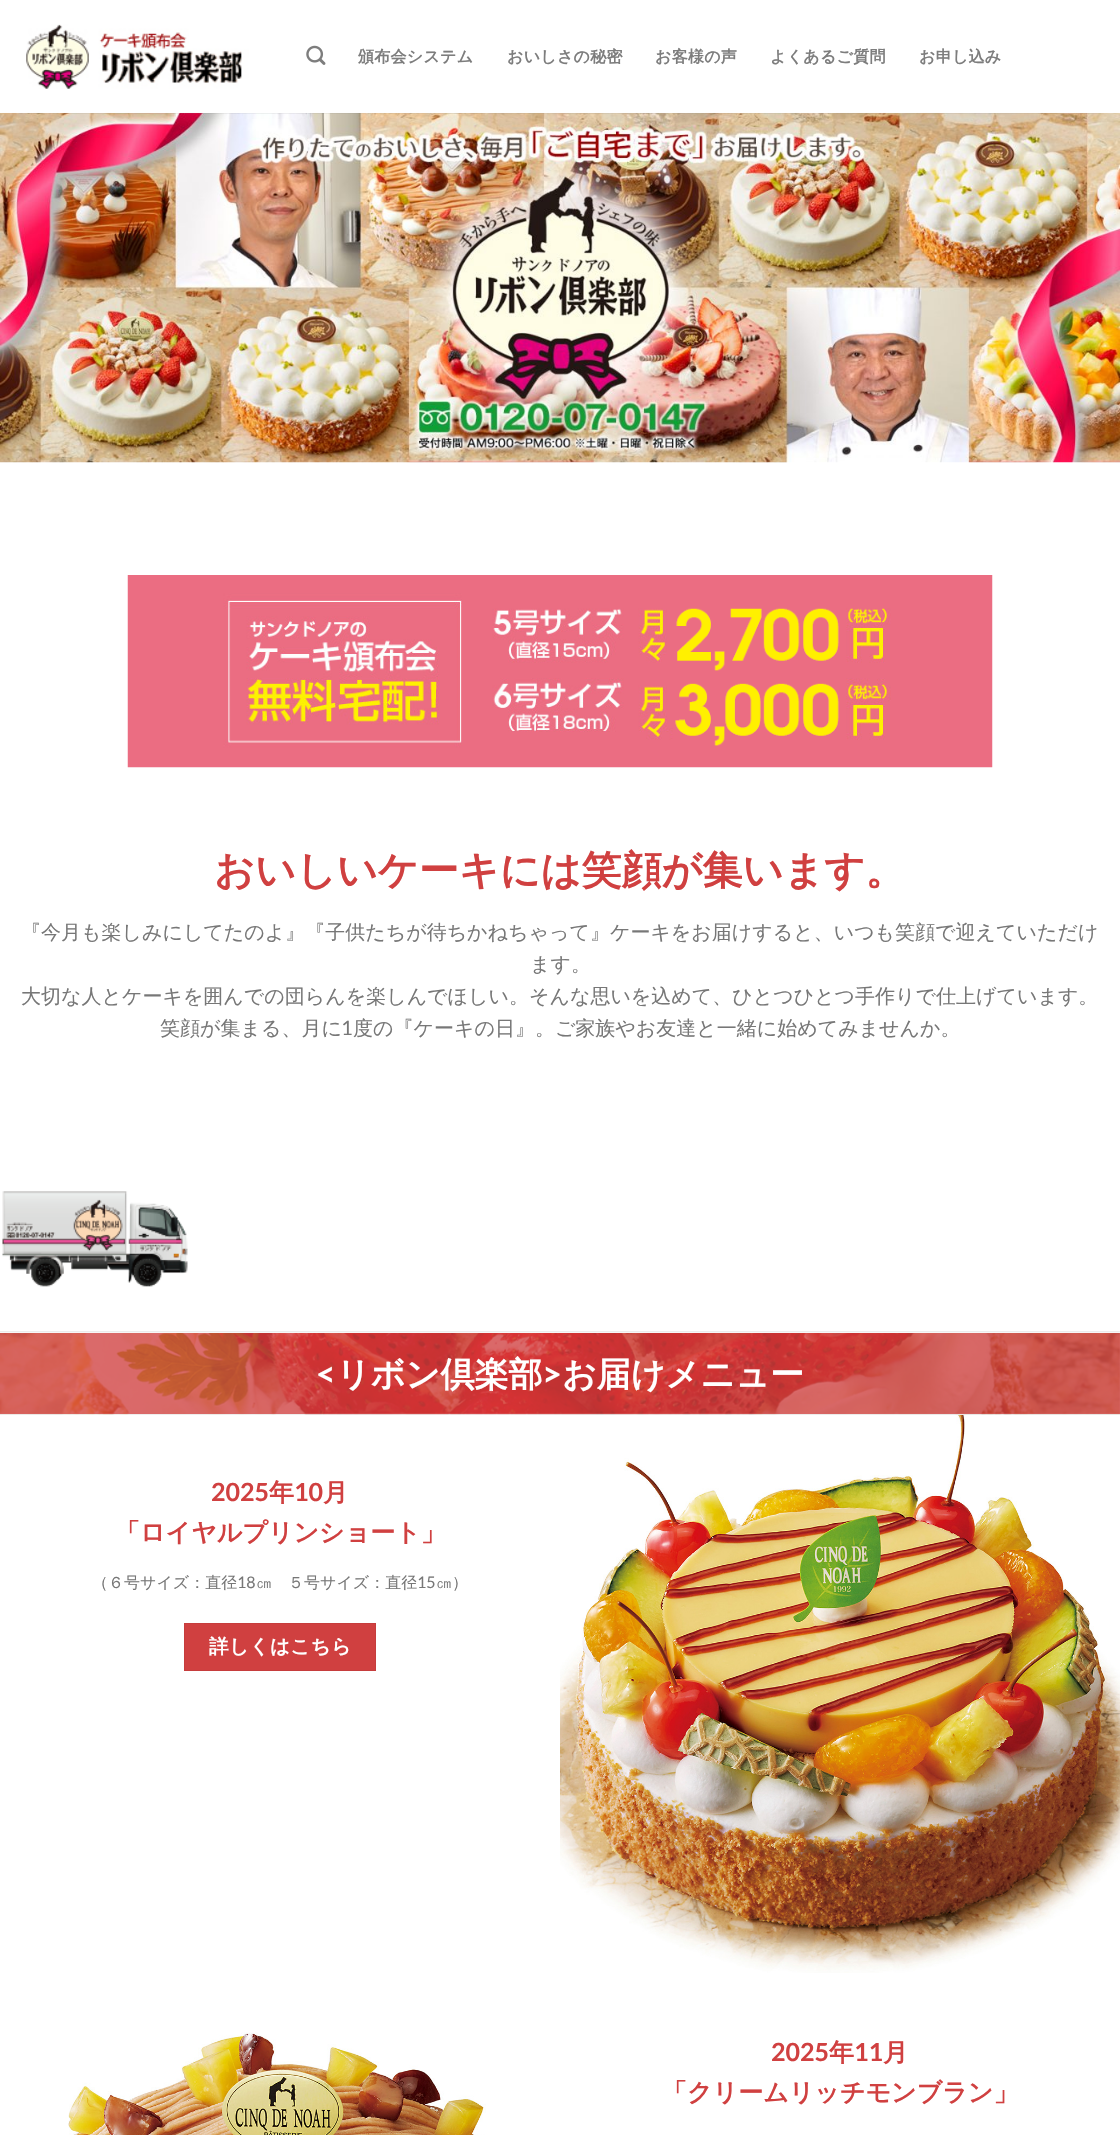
void draw(SkCanvas* canvas) {
  SkPaint paint;
  paint.setAntiAlias(true);
  auto face = [&](const char* family, int weight, float size, bool italic = false) {
    SkFontStyle style(weight, SkFontStyle::kNormal_Width,
      italic ? SkFontStyle::kItalic_Slant : SkFontStyle::kUpright_Slant);
    SkFont result(fontMgr->matchFamilyStyle(family, style), size);
    result.setSubpixel(true);
    return result;
  };
  auto writeSpaced = [&](const char* s, float x, float y, const SkFont& font, const SkPaint& ink, float letter, float word) {
    std::vector<SkGlyphID> glyphs(font.countText(s, strlen(s), SkTextEncoding::kUTF8));
    std::vector<float> xs(glyphs.size());
    font.textToGlyphs(s, strlen(s), SkTextEncoding::kUTF8, glyphs);
    font.getXPos(glyphs, xs, x);
    float extra = 0;
    for (size_t i = 0; i < glyphs.size(); i++) {
      xs[i] += extra;
      extra += letter + word * (glyphs[i] == font.unicharToGlyph(' '));
    }
    canvas->drawTextBlob(SkTextBlob::MakeFromPosHGlyphs(glyphs, xs, y, font), 0, 0, ink);
  };
  auto paste = [&](const char* path, float x, float y, float w, float h) {
    auto image = SkImages::DeferredFromEncodedData(SkData::MakeFromFileName(path));
    canvas->drawImageRect(image, SkRect::MakeXYWH(x, y, w, h), SkSamplingOptions());
  };
  canvas->clear(0xffffffff);
  paste("img/1.png", 26, 24, 223, 65);
  paste("img/2.png", 306, 45, 20, 20);
  paste("img/3.png", 0, 112, 1120, 351);
  paint.setColor(0x1a777777);
  canvas->drawRect(SkRect::MakeXYWH(19, 113, 1082, 1), paint);
  paint.setColor(0xe6ffffff);
  canvas->drawRect(SkRect::MakeXYWH(0, 112, 1120, 1), paint);
  paste("img/4.png", 127, 575, 866, 193);
  paste("img/5.png", 2, 1191, 186, 96);
  {
    const struct { float x, y, w, h; SkColor color; } items[] = {
      {0, 1332, 1120, 1, 0xfff7f7f7},
      {0, 1333, 1120, 81, 0xffd96868},
      {0, 1331, 1120, 1, 0xffececec},
      {0, 1414, 1120, 1, 0xffececec},
    };
    for (auto [x, y, w, h, color] : items) {
      paint.setColor(color);
      canvas->drawRect(SkRect::MakeXYWH(x, y, w, h), paint);
    }
  }
  paste("img/6.png", 0, 1333, 1120, 82);
  paint.setColor(0xffd04040);
  canvas->drawRect(SkRect::MakeXYWH(184.5f, 1623.5f, 191, 47), paint);
  paint.setStroke(true);
  paint.setStrokeWidth(1);
  paint.setColor(0xffc63d3d);
  canvas->drawRect(SkRect::MakeXYWH(184.5f, 1623.5f, 191, 47), paint);
  paste("img/7.png", 560, 1415, 560, 558);
  paste("img/8.png", 68, 2032, 418, 103);
  auto f0 = face("WenQuanYi Zen Hei", 700, 16);
  paint.setStroke(false);
  paint.setColor(0xff7d7d7d);
  {
    const struct { const char* s; float x, y; } items[] = {
      {"頒布会システム", 358, 62},
      {"おいしさの秘密", 507, 62},
      {"お客様の声", 655, 62},
      {"よくあるご質問", 770, 62},
      {"お申し込み", 919, 62},
    };
    for (auto [s, x, y] : items) {
      writeSpaced(s, x, y, f0, paint, 0.25f, 0);
    }
  }
  auto f1 = face("WenQuanYi Zen Hei", 700, 40);
  paint.setColor(0xffd04040);
  canvas->drawString("おいしいケーキには笑顔が集います。", 214, 884, f1, paint);
  auto f2 = face("WenQuanYi Zen Hei", 500, 20);
  paint.setColor(0xff777777);
  {
    const struct { const char* s; float x, y; } items[] = {
      {"『今月も楽しみにしてたのよ』『子供たちが待ちかねちゃって』ケーキをお届けすると、いつも笑顔で迎えていただけ", 21, 939},
      {"ます。", 530, 971},
      {"大切な人とケーキを囲んでの団らんを楽しんでほしい。そんな思いを込めて、ひとつひとつ手作りで仕上げています。", 21, 1003},
      {"笑顔が集まる、月に", 160, 1035},
    };
    for (auto [s, x, y] : items) {
      canvas->drawString(s, x, y, f2, paint);
    }
  }
  auto f3 = face("Lato", 400, 20);
  canvas->drawString("1", 341, 1035, f3, paint);
  canvas->drawString("度の『ケーキの日』。ご家族やお友達と一緒に始めてみませんか。", 353, 1035, f2, paint);
  auto f4 = face("Lato", 700, 34);
  paint.setColor(0xffffffff);
  canvas->drawString("<", 316, 1386, f4, paint);
  auto f5 = face("WenQuanYi Zen Hei", 700, 34);
  canvas->drawString("リボン倶楽部", 336, 1386, f5, paint);
  canvas->drawString(">", 542, 1386, f4, paint);
  canvas->drawString("お届けメニュー", 562, 1386, f5, paint);
  auto f6 = face("Lato", 700, 25);
  paint.setColor(0xffd04040);
  canvas->drawString("2025", 211, 1501, f6, paint);
  auto f7 = face("WenQuanYi Zen Hei", 700, 25);
  canvas->drawString("年", 269, 1501, f7, paint);
  canvas->drawString("10", 294, 1501, f6, paint);
  canvas->drawString("月", 323, 1501, f7, paint);
  canvas->drawString("「ロイヤルプリンショート」", 115, 1541, f7, paint);
  auto f8 = face("WenQuanYi Zen Hei", 500, 16);
  paint.setColor(0xff777777);
  canvas->drawString("（６号サイズ：直径", 92, 1588, f8, paint);
  auto f9 = face("Lato", 400, 16);
  canvas->drawString("18", 237, 1588, f9, paint);
  canvas->drawString("㎝　５号サイズ：直径", 256, 1588, f8, paint);
  canvas->drawString("15", 417, 1588, f9, paint);
  canvas->drawString("㎝）", 436, 1588, f8, paint);
  auto f10 = face("WenQuanYi Zen Hei", 700, 19.5f);
  paint.setColor(0xffffffff);
  writeSpaced("詳しくはこちら", 209, 1653, f10, paint, 0.5f, 0);
  paint.setColor(0xffd04040);
  canvas->drawString("2025", 771, 2061, f6, paint);
  canvas->drawString("年", 829, 2061, f7, paint);
  canvas->drawString("11", 854, 2061, f6, paint);
  canvas->drawString("月", 883, 2061, f7, paint);
  canvas->drawString("「クリームリッチモンブラン」", 662, 2101, f7, paint);
}
